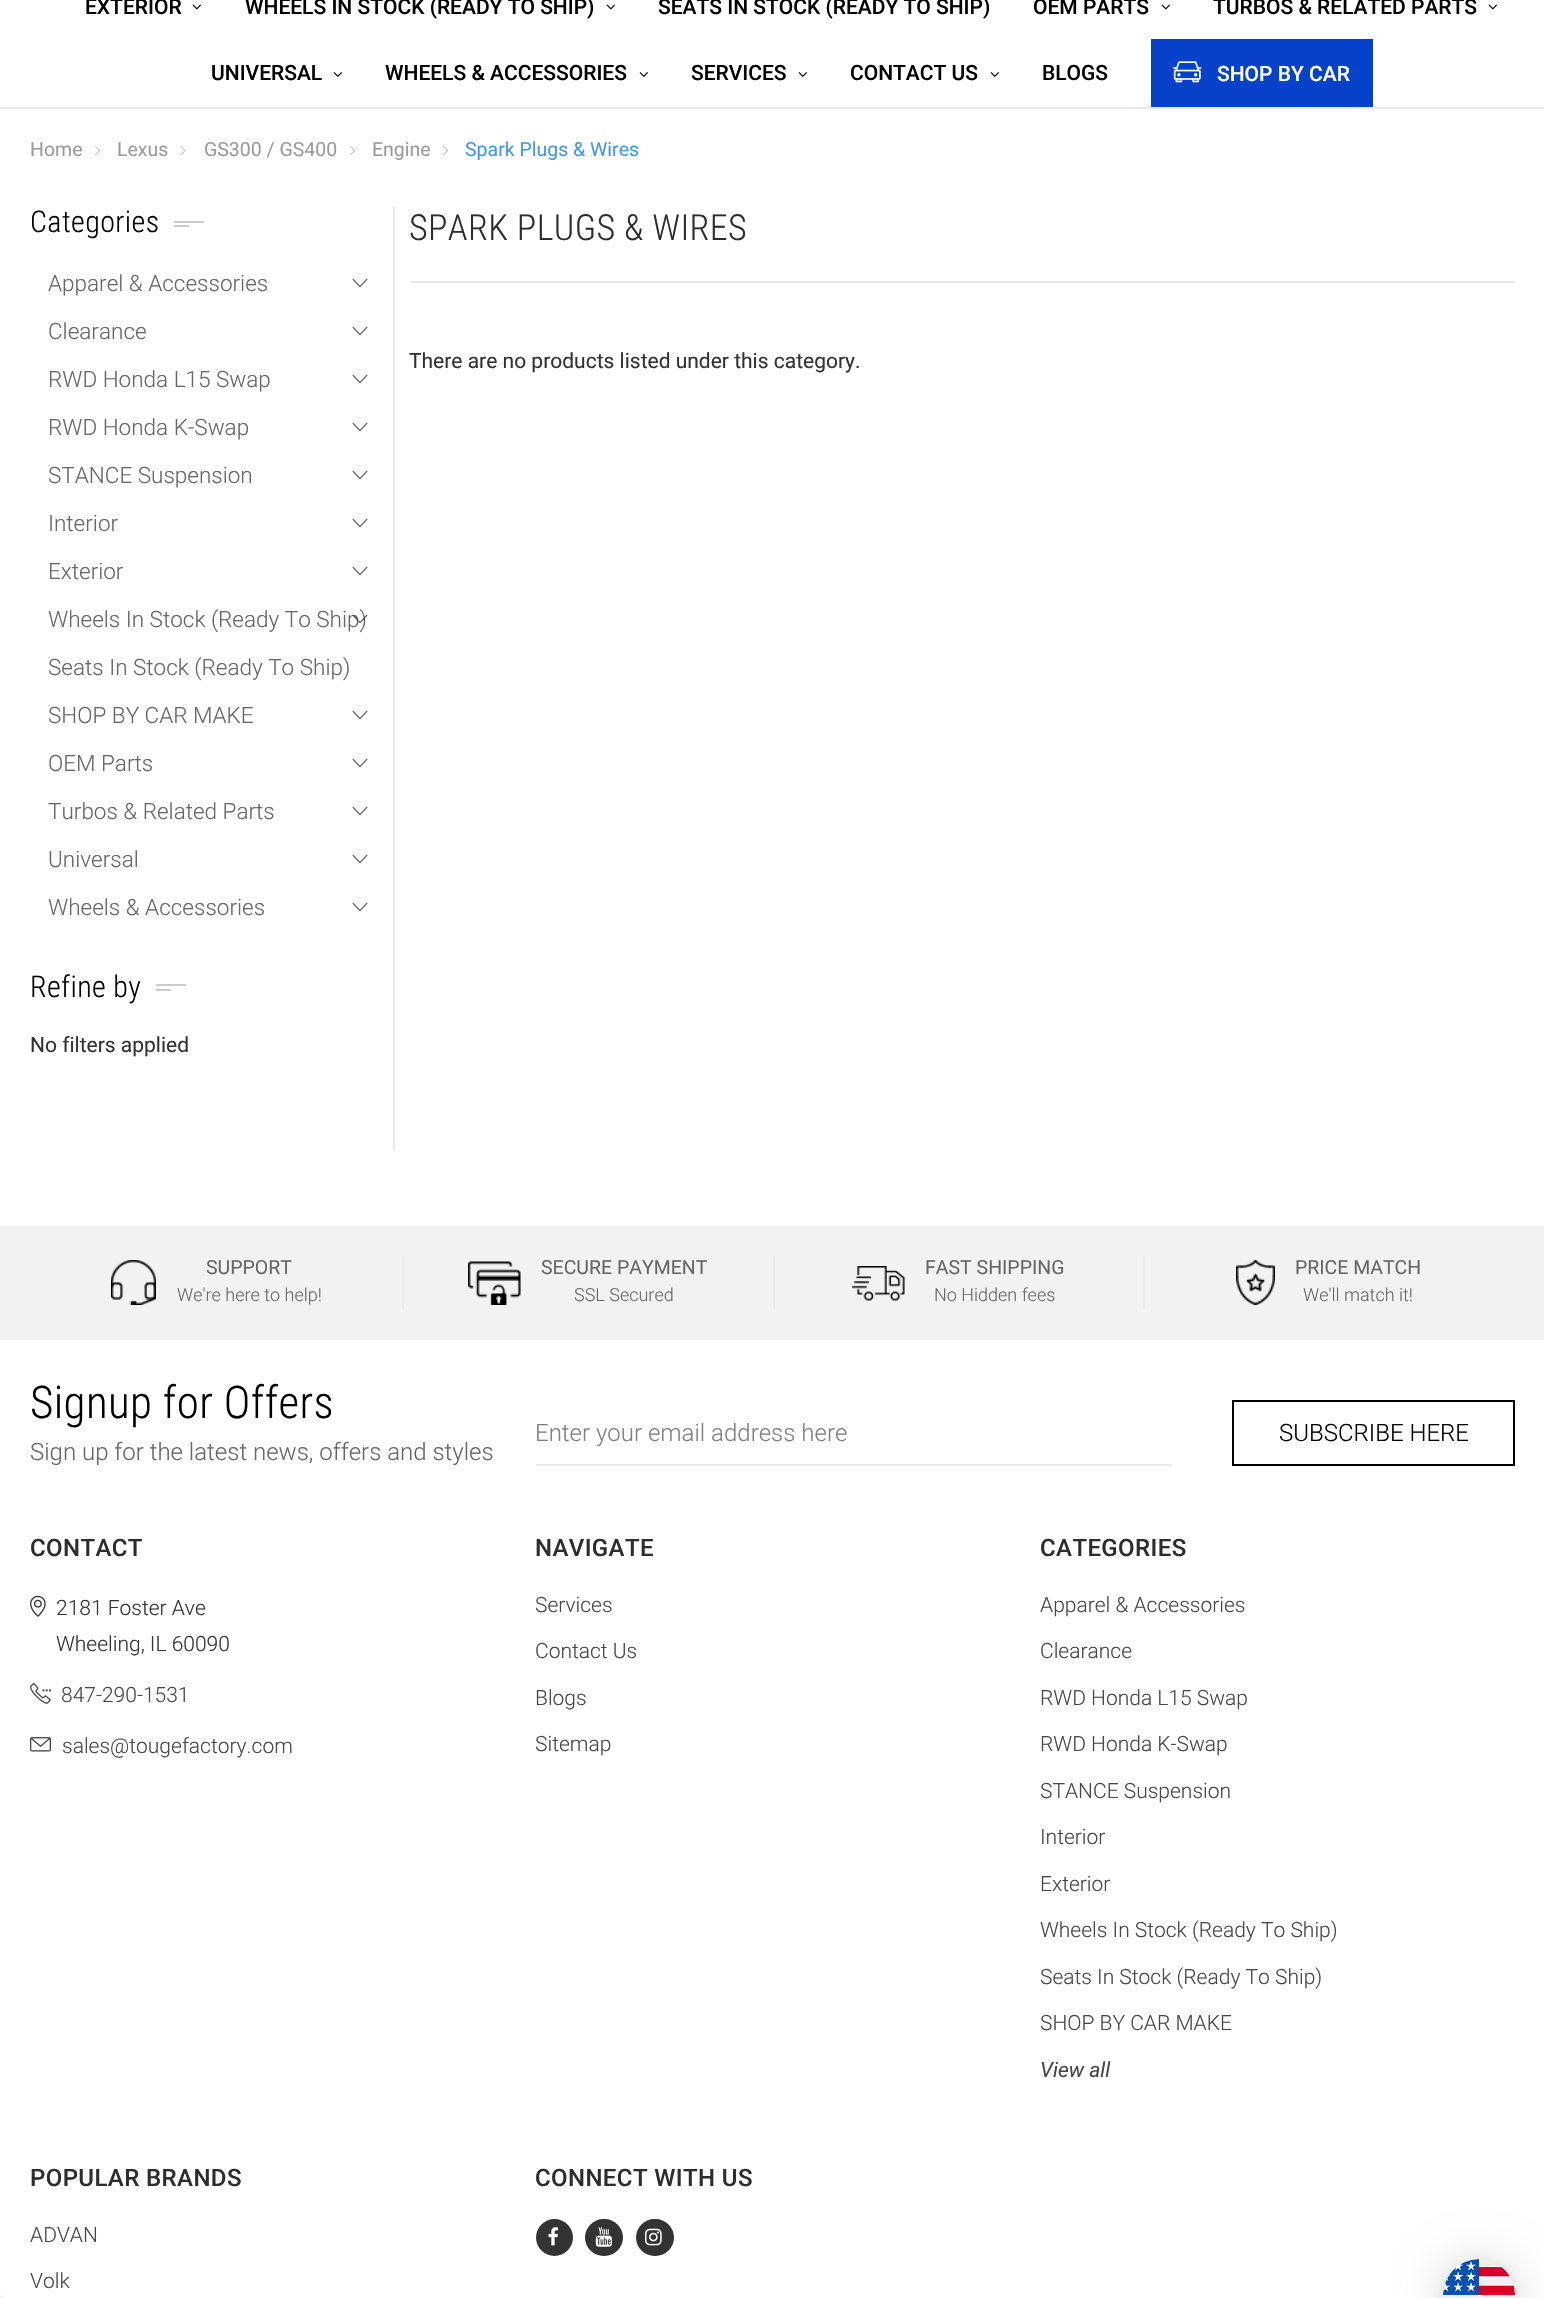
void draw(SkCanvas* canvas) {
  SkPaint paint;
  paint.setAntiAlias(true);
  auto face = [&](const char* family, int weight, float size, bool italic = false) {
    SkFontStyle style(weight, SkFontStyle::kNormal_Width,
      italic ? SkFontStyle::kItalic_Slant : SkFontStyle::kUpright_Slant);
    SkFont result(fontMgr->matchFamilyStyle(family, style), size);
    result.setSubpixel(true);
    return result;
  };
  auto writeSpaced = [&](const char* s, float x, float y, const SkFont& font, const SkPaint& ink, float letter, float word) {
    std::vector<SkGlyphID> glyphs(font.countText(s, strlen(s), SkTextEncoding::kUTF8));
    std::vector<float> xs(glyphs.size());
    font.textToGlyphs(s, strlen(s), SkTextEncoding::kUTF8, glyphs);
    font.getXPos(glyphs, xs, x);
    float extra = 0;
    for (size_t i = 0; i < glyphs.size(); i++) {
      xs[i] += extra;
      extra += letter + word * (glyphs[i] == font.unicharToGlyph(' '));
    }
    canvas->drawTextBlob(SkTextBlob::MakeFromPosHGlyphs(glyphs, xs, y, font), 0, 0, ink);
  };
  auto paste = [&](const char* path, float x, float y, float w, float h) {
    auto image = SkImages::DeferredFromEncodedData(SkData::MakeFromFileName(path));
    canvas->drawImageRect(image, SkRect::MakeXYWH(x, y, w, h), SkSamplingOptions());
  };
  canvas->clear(0xffffffff);
  paint.setColor(0xffe9e9e9);
  canvas->drawRect(SkRect::MakeXYWH(0, 107, 1544, 2), paint);
  paste("img/1.png", 192, 4, 9, 6);
  paste("img/1.png", 606, 4, 9, 6);
  paste("img/1.png", 1161, 4, 9, 6);
  paste("img/1.png", 1488, 4, 9, 6);
  paste("img/2.png", 333, 72, 9, 5);
  paste("img/2.png", 639, 72, 9, 5);
  paste("img/2.png", 798, 72, 9, 5);
  paste("img/2.png", 990, 72, 9, 5);
  paint.setColor(0xff0542c9);
  canvas->drawRect(SkRect::MakeXYWH(1151, 39, 222, 68), paint);
  paste("img/3.png", 1173, 61, 29, 22);
  paste("img/4.png", 95, 146, 5, 9);
  paste("img/5.png", 180, 146, 6, 9);
  paste("img/4.png", 350, 146, 5, 9);
  paste("img/4.png", 443, 146, 5, 9);
  {
    const struct { float x, y, w, h; SkColor color; } items[] = {
      {393, 206, 2, 945, 0xffe9e9e9},
      {174, 221, 30, 2, 0xffcccccc},
      {174, 225, 15, 2, 0xffcccccc},
    };
    for (auto [x, y, w, h, color] : items) {
      paint.setColor(color);
      canvas->drawRect(SkRect::MakeXYWH(x, y, w, h), paint);
    }
  }
  paste("img/6.png", 352, 278, 16, 10);
  paste("img/6.png", 352, 326, 16, 10);
  paste("img/6.png", 352, 374, 16, 10);
  paste("img/6.png", 352, 422, 16, 10);
  paste("img/6.png", 352, 470, 16, 10);
  paste("img/6.png", 352, 518, 16, 10);
  paste("img/6.png", 352, 566, 16, 10);
  paste("img/6.png", 352, 710, 16, 10);
  paste("img/6.png", 352, 758, 16, 10);
  paste("img/6.png", 352, 806, 16, 10);
  paste("img/6.png", 352, 854, 16, 10);
  paste("img/6.png", 352, 902, 16, 10);
  {
    const struct { float x, y, w, h; SkColor color; } items[] = {
      {156, 984, 30, 2, 0xffcccccc},
      {156, 989, 15, 2, 0xffcccccc},
      {410, 281, 1105, 2, 0xffe9e9e9},
      {0, 1226, 1544, 114, 0xfff2f2f2},
    };
    for (auto [x, y, w, h, color] : items) {
      paint.setColor(color);
      canvas->drawRect(SkRect::MakeXYWH(x, y, w, h), paint);
    }
  }
  paste("img/8.png", 111, 1260, 45, 45);
  paint.setColor(0xffe9e9e9);
  canvas->drawRect(SkRect::MakeXYWH(402, 1256, 2, 54), paint);
  paste("img/9.png", 468, 1261, 53, 44);
  canvas->drawRect(SkRect::MakeXYWH(773, 1256, 2, 54), paint);
  paste("img/10.png", 852, 1266, 53, 35);
  canvas->drawRect(SkRect::MakeXYWH(1143, 1256, 2, 54), paint);
  paste("img/11.png", 1236, 1260, 39, 45);
  canvas->drawRect(SkRect::MakeXYWH(536, 1464, 636, 2), paint);
  paint.setStroke(true);
  paint.setStrokeWidth(2);
  paint.setColor(0xff000000);
  canvas->drawRect(SkRect::MakeXYWH(1233, 1401, 281, 64), paint);
  paste("img/12.png", 30, 1595, 16, 22);
  paste("img/13.png", 30, 1682, 21, 22);
  paste("img/14.png", 30, 1737, 21, 15);
  paint.setStroke(false);
  paint.setColor(0xff333333);
  canvas->drawCircle(554.5f, 2237.5f, 18.5f, paint);
  paste("img/15.png", 548, 2227, 10, 19);
  canvas->drawRoundRect(SkRect::MakeXYWH(585, 2219, 38, 37), 18.5f, 18.5f, paint);
  paste("img/16.png", 595, 2227, 17, 20);
  canvas->drawRoundRect(SkRect::MakeXYWH(636, 2219, 38, 37), 18.5f, 18.5f, paint);
  paste("img/17.png", 645, 2228, 17, 18);
  paint.setColor(0xfff5f5f5);
  canvas->drawRect(SkRect::MakeXYWH(0, 2295, 3, 3), paint);
  paint.setColor(0x29000000);
  paint.setMaskFilter(SkMaskFilter::MakeBlur(kNormal_SkBlurStyle, 24));
  canvas->drawRoundRect(SkRect::MakeXYWH(1443, 2262, 72, 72), 36, 36, paint);
  paint.setMaskFilter(nullptr);
  paint.setColor(0x0f000000);
  paint.setMaskFilter(SkMaskFilter::MakeBlur(kNormal_SkBlurStyle, 4.5f));
  canvas->drawRoundRect(SkRect::MakeXYWH(1443, 2261, 72, 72), 36, 36, paint);
  paint.setMaskFilter(nullptr);
  paste("img/18.png", 1443, 2259, 72, 39);
  auto f0 = face("Roboto", 500, 21);
  paint.setColor(0xff000000);
  {
    const struct { const char* s; float x, y; } items[] = {
      {"EXTERIOR", 85, 14},
      {"WHEELS IN STOCK (READY TO SHIP)", 245, 14},
      {"SEATS IN STOCK (READY TO SHIP)", 658, 14},
      {"OEM PARTS", 1033, 14},
      {"TURBOS & RELATED PARTS", 1213, 14},
      {"UNIVERSAL", 211, 80},
      {"WHEELS & ACCESSORIES", 385, 80},
      {"SERVICES", 691, 80},
      {"CONTACT US", 850, 80},
      {"BLOGS", 1042, 80},
    };
    for (auto [s, x, y] : items) {
      canvas->drawString(s, x, y, f0, paint);
    }
  }
  paint.setColor(0xffffffff);
  canvas->drawString("SHOP BY CAR", 1217, 81, f0, paint);
  auto f1 = face("Roboto", 400, 19.5f);
  paint.setColor(0xff9b9b9b);
  {
    const struct { const char* s; float x, y; } items[] = {
      {"Home", 30, 156},
      {"Lexus", 117, 156},
      {"GS300 / GS400", 204, 156},
      {"Engine", 372, 156},
    };
    for (auto [s, x, y] : items) {
      canvas->drawString(s, x, y, f1, paint);
    }
  }
  paint.setColor(0xff4496f6);
  canvas->drawString("Spark Plugs & Wires", 465, 156, f1, paint);
  auto f2 = face("Roboto Condensed", 300, 30);
  paint.setColor(0xff000000);
  writeSpaced("Categories", 30, 232, f2, paint, 0.4f, 0);
  auto f3 = face("Roboto", 300, 22.5f);
  paint.setColor(0xff666666);
  {
    const struct { const char* s; float x, y; } items[] = {
      {"Apparel & Accessories", 48, 291},
      {"Clearance", 48, 339},
      {"RWD Honda L15 Swap", 48, 387},
      {"RWD Honda K-Swap", 48, 435},
      {"STANCE Suspension", 48, 483},
      {"Interior", 48, 531},
      {"Exterior", 48, 579},
      {"Wheels In Stock (Ready To Ship)", 48, 627},
    };
    for (auto [s, x, y] : items) {
      canvas->drawString(s, x, y, f3, paint);
    }
  }
  paste("img/7.png", 352, 614, 16, 10);
  {
    const struct { const char* s; float x, y; } items[] = {
      {"Seats In Stock (Ready To Ship)", 48, 675},
      {"SHOP BY CAR MAKE", 48, 723},
      {"OEM Parts", 48, 771},
      {"Turbos & Related Parts", 48, 819},
      {"Universal", 48, 867},
      {"Wheels & Accessories", 48, 915},
    };
    for (auto [s, x, y] : items) {
      canvas->drawString(s, x, y, f3, paint);
    }
  }
  paint.setColor(0xff000000);
  writeSpaced("Refine by", 30, 997, f2, paint, 0.4f, 0);
  auto f4 = face("Roboto", 400, 21);
  paint.setColor(0xff333333);
  canvas->drawString("No filters applied", 30, 1052, f4, paint);
  auto f5 = face("Roboto Condensed", 300, 36);
  paint.setColor(0xff2d2d2d);
  writeSpaced("SPARK PLUGS & WIRES", 409, 240, f5, paint, 0.4f, 0);
  paint.setColor(0xff333333);
  canvas->drawString("There are no products listed under this category.", 409, 368, f4, paint);
  paint.setColor(0xff666666);
  canvas->drawString("SUPPORT", 206, 1274, f1, paint);
  auto f6 = face("Roboto", 300, 18);
  canvas->drawString("We're here to help!", 177, 1301, f6, paint);
  canvas->drawString("SECURE PAYMENT", 541, 1274, f1, paint);
  canvas->drawString("SSL Secured", 574, 1301, f6, paint);
  canvas->drawString("FAST SHIPPING", 925, 1274, f1, paint);
  canvas->drawString("No Hidden fees", 934, 1301, f6, paint);
  canvas->drawString("PRICE MATCH", 1295, 1274, f1, paint);
  canvas->drawString("We'll match it!", 1303, 1301, f6, paint);
  auto f7 = face("Roboto Condensed", 300, 45);
  paint.setColor(0xff000000);
  writeSpaced("Signup for Offers", 30, 1418, f7, paint, 0.4f, 0);
  auto f8 = face("Roboto", 300, 24);
  paint.setColor(0xff666666);
  canvas->drawString("Sign up for the latest news, offers and styles", 30, 1460, f8, paint);
  paint.setColor(0xff808080);
  canvas->drawString("Enter your email address here", 535, 1441, f8, paint);
  paint.setColor(0xff000000);
  canvas->drawString("SUBSCRIBE HERE", 1279, 1441, f8, paint);
  auto f9 = face("Roboto", 500, 24);
  paint.setColor(0xff2d2d2d);
  writeSpaced("CONTACT", 30, 1556, f9, paint, 0.4f, 0);
  auto f10 = face("Roboto", 300, 21);
  paint.setColor(0xff333333);
  canvas->drawString("2181 Foster Ave", 56, 1615, f10, paint);
  canvas->drawString("Wheeling, IL 60090", 56, 1651, f10, paint);
  paint.setColor(0xff474747);
  canvas->drawString("847-290-1531", 61, 1702, f10, paint);
  canvas->drawString("sales@tougefactory.com", 62, 1753, f10, paint);
  paint.setColor(0xff2d2d2d);
  writeSpaced("NAVIGATE", 535, 1556, f9, paint, 0.4f, 0);
  paint.setColor(0xff474747);
  {
    const struct { const char* s; float x, y; } items[] = {
      {"Services", 535, 1612},
      {"Contact Us", 535, 1658},
      {"Blogs", 535, 1705},
      {"Sitemap", 535, 1751},
    };
    for (auto [s, x, y] : items) {
      canvas->drawString(s, x, y, f10, paint);
    }
  }
  paint.setColor(0xff2d2d2d);
  writeSpaced("CATEGORIES", 1040, 1556, f9, paint, 0.4f, 0);
  paint.setColor(0xff474747);
  {
    const struct { const char* s; float x, y; } items[] = {
      {"Apparel & Accessories", 1040, 1612},
      {"Clearance", 1040, 1658},
      {"RWD Honda L15 Swap", 1040, 1705},
      {"RWD Honda K-Swap", 1040, 1751},
      {"STANCE Suspension", 1040, 1798},
      {"Interior", 1040, 1844},
      {"Exterior", 1040, 1891},
      {"Wheels In Stock (Ready To Ship)", 1040, 1937},
      {"Seats In Stock (Ready To Ship)", 1040, 1984},
      {"SHOP BY CAR MAKE", 1040, 2030},
    };
    for (auto [s, x, y] : items) {
      canvas->drawString(s, x, y, f10, paint);
    }
  }
  auto f11 = face("Roboto", 400, 21, true);
  canvas->drawString("View all", 1040, 2077, f11, paint);
  paint.setColor(0xff2d2d2d);
  writeSpaced("POPULAR BRANDS", 30, 2186, f9, paint, 0.4f, 0);
  paint.setColor(0xff474747);
  canvas->drawString("ADVAN", 30, 2242, f10, paint);
  canvas->drawString("Volk", 30, 2288, f10, paint);
  paint.setColor(0xff2d2d2d);
  writeSpaced("CONNECT WITH US", 535, 2186, f9, paint, 0.4f, 0);
}
